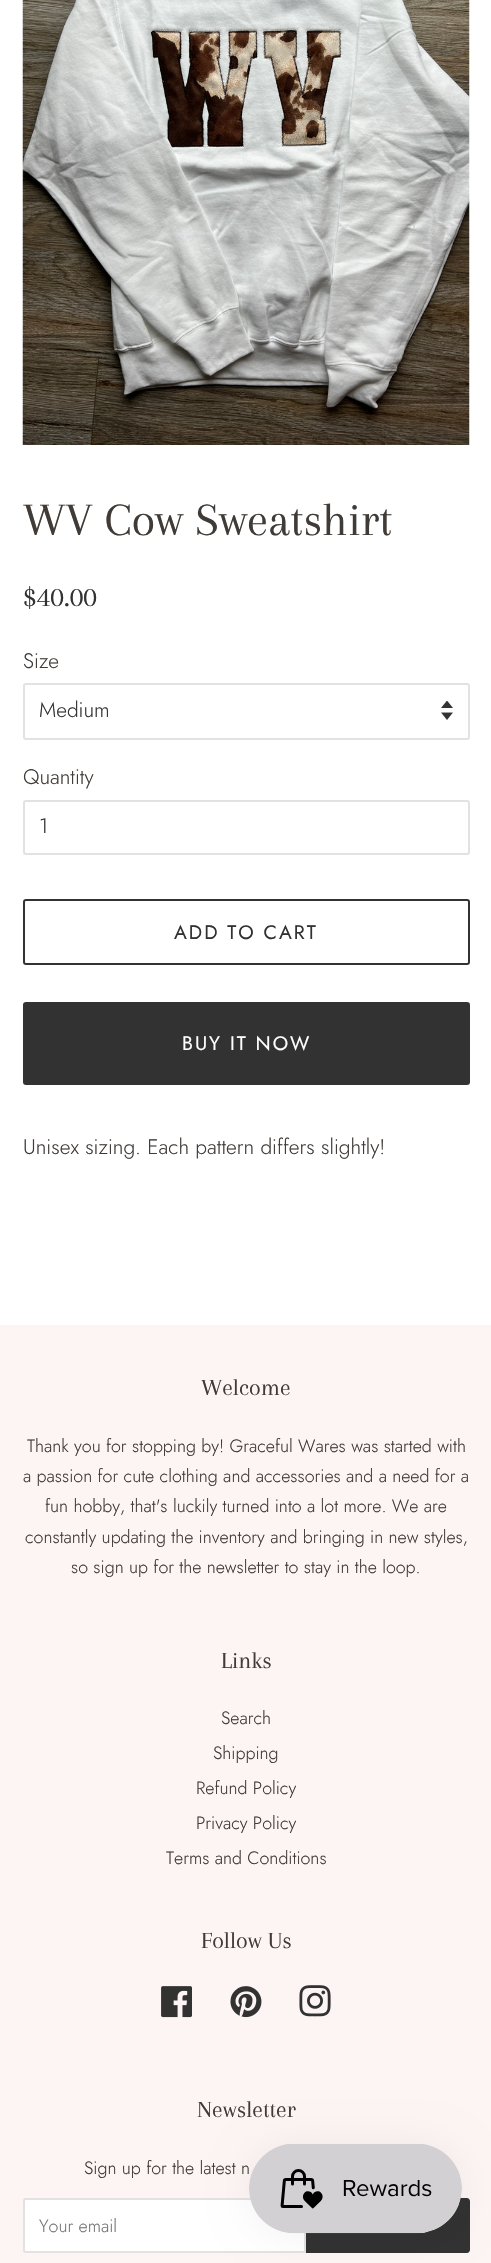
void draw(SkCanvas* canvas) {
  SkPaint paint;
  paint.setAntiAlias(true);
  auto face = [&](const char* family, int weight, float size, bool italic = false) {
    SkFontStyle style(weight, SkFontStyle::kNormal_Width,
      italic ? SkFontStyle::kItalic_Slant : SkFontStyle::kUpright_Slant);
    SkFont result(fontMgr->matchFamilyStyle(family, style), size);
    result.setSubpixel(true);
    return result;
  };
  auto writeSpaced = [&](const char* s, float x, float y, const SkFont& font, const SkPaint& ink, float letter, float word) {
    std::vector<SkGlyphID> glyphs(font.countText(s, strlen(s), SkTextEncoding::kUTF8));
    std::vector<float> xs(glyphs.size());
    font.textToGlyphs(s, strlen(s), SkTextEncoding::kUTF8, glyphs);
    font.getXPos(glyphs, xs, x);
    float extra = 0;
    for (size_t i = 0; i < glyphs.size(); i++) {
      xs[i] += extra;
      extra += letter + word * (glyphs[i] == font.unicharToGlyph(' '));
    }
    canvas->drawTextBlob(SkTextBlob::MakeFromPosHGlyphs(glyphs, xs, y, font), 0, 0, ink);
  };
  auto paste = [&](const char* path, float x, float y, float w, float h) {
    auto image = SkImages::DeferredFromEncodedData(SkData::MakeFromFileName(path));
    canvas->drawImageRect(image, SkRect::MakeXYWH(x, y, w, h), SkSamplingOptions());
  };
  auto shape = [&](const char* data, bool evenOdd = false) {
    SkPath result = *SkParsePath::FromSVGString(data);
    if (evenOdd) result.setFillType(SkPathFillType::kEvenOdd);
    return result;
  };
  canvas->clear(0xffffffff);
  paste("img/1.png", 22, 0, 448, 445);
  paste("img/2.png", 441, 701, 12, 19);
  paint.setStroke(true);
  paint.setStrokeWidth(2);
  paint.setColor(0xffe2e2e1);
  canvas->drawRoundRect(SkRect::MakeXYWH(24, 684, 445, 55), 2, 2, paint);
  canvas->drawRoundRect(SkRect::MakeXYWH(24, 801, 445, 53), 2, 2, paint);
  paint.setColor(0xff323232);
  canvas->drawRoundRect(SkRect::MakeXYWH(24, 900, 445, 64), 2, 2, paint);
  paint.setStroke(false);
  canvas->drawRoundRect(SkRect::MakeXYWH(23, 1002, 447, 83), 3, 3, paint);
  paint.setColor(0xfffdf4f4);
  canvas->drawRect(SkRect::MakeXYWH(0, 1325, 491, 938), paint);
  paste("img/3.png", 161, 1986, 31, 32);
  paste("img/4.png", 230, 1986, 32, 32);
  paste("img/5.png", 299, 1985, 32, 32);
  paint.setColor(0xffffffff);
  canvas->drawPath(shape("M26 2198H306V2253H26C24.5 2253 23 2251.5 23 2250V2201C23 2199.5 24.5 2198 26 2198Z"), paint);
  paint.setStroke(true);
  paint.setColor(0x26403b37);
  canvas->drawPath(shape("M26 2199H305V2252H26C25 2252 24 2251 24 2250V2201C24 2200 25 2199 26 2199Z"), paint);
  paint.setStroke(false);
  paint.setColor(0xff323232);
  canvas->drawPath(shape("M306 2198H467C468.5 2198 470 2199.5 470 2201V2250C470 2251.5 468.5 2253 467 2253H306Z"), paint);
  paint.setColor(0x0d000000);
  paint.setMaskFilter(SkMaskFilter::MakeBlur(kNormal_SkBlurStyle, 19));
  canvas->drawRoundRect(SkRect::MakeXYWH(249, 2144, 213, 90), 45, 45, paint);
  paint.setMaskFilter(nullptr);
  paste("img/6.png", 249, 2144, 213, 90);
  auto f0 = face("Arapey", 400, 48);
  paint.setColor(0xff403b37);
  canvas->drawString("WV Cow Sweatshirt", 23, 535, f0, paint);
  auto f1 = face("Arapey", 400, 29.5f);
  paint.setColor(0xff323232);
  canvas->drawString("$40.00", 23, 606, f1, paint);
  auto f2 = face("Jost", 300, 21);
  paint.setColor(0xff403b37);
  canvas->drawString("Size", 23, 668, f2, paint);
  paint.setColor(0xff323232);
  canvas->drawString("Medium", 39, 717, f2, paint);
  paint.setColor(0xff403b37);
  canvas->drawString("Quantity", 23, 784, f2, paint);
  paint.setColor(0xff323232);
  canvas->drawString("1", 39, 833, f2, paint);
  auto f3 = face("Jost", 400, 19.5f);
  writeSpaced("ADD TO CART", 174, 939, f3, paint, 2, 0);
  paint.setColor(0xffffffff);
  writeSpaced("BUY IT NOW", 182, 1050, f3, paint, 2, 0);
  paint.setColor(0xff403b37);
  canvas->drawString("Unisex sizing. Each pattern differs slightly!", 23, 1154, f2, paint);
  auto f4 = face("Arapey", 400, 24);
  canvas->drawString("Welcome", 201, 1395, f4, paint);
  auto f5 = face("Jost", 300, 17.85f);
  {
    const struct { const char* s; float x, y; } items[] = {
      {"Thank you for stopping by! Graceful Wares was started with", 27, 1452},
      {"a passion for cute clothing and accessories and a need for a", 23, 1482},
      {"fun hobby, that's luckily turned into a lot more. We are", 45, 1512},
      {"constantly updating the inventory and bringing in new styles,", 25, 1543},
      {"so sign up for the newsletter to stay in the loop.", 71, 1573},
    };
    for (auto [s, x, y] : items) {
      canvas->drawString(s, x, y, f5, paint);
    }
  }
  canvas->drawString("Links", 221, 1668, f4, paint);
  {
    const struct { const char* s; float x, y; } items[] = {
      {"Search", 221, 1724},
      {"Shipping", 213, 1759},
      {"Refund Policy", 196, 1794},
      {"Privacy Policy", 196, 1829},
      {"Terms and Conditions", 166, 1864},
    };
    for (auto [s, x, y] : items) {
      canvas->drawString(s, x, y, f5, paint);
    }
  }
  canvas->drawString("Follow Us", 201, 1948, f4, paint);
  canvas->drawString("Newsletter", 197, 2117, f4, paint);
  canvas->drawString("Sign up for the latest n", 84, 2174, f5, paint);
  paint.setColor(0xff757575);
  canvas->drawString("Your email", 39, 2232, f5, paint);
}
